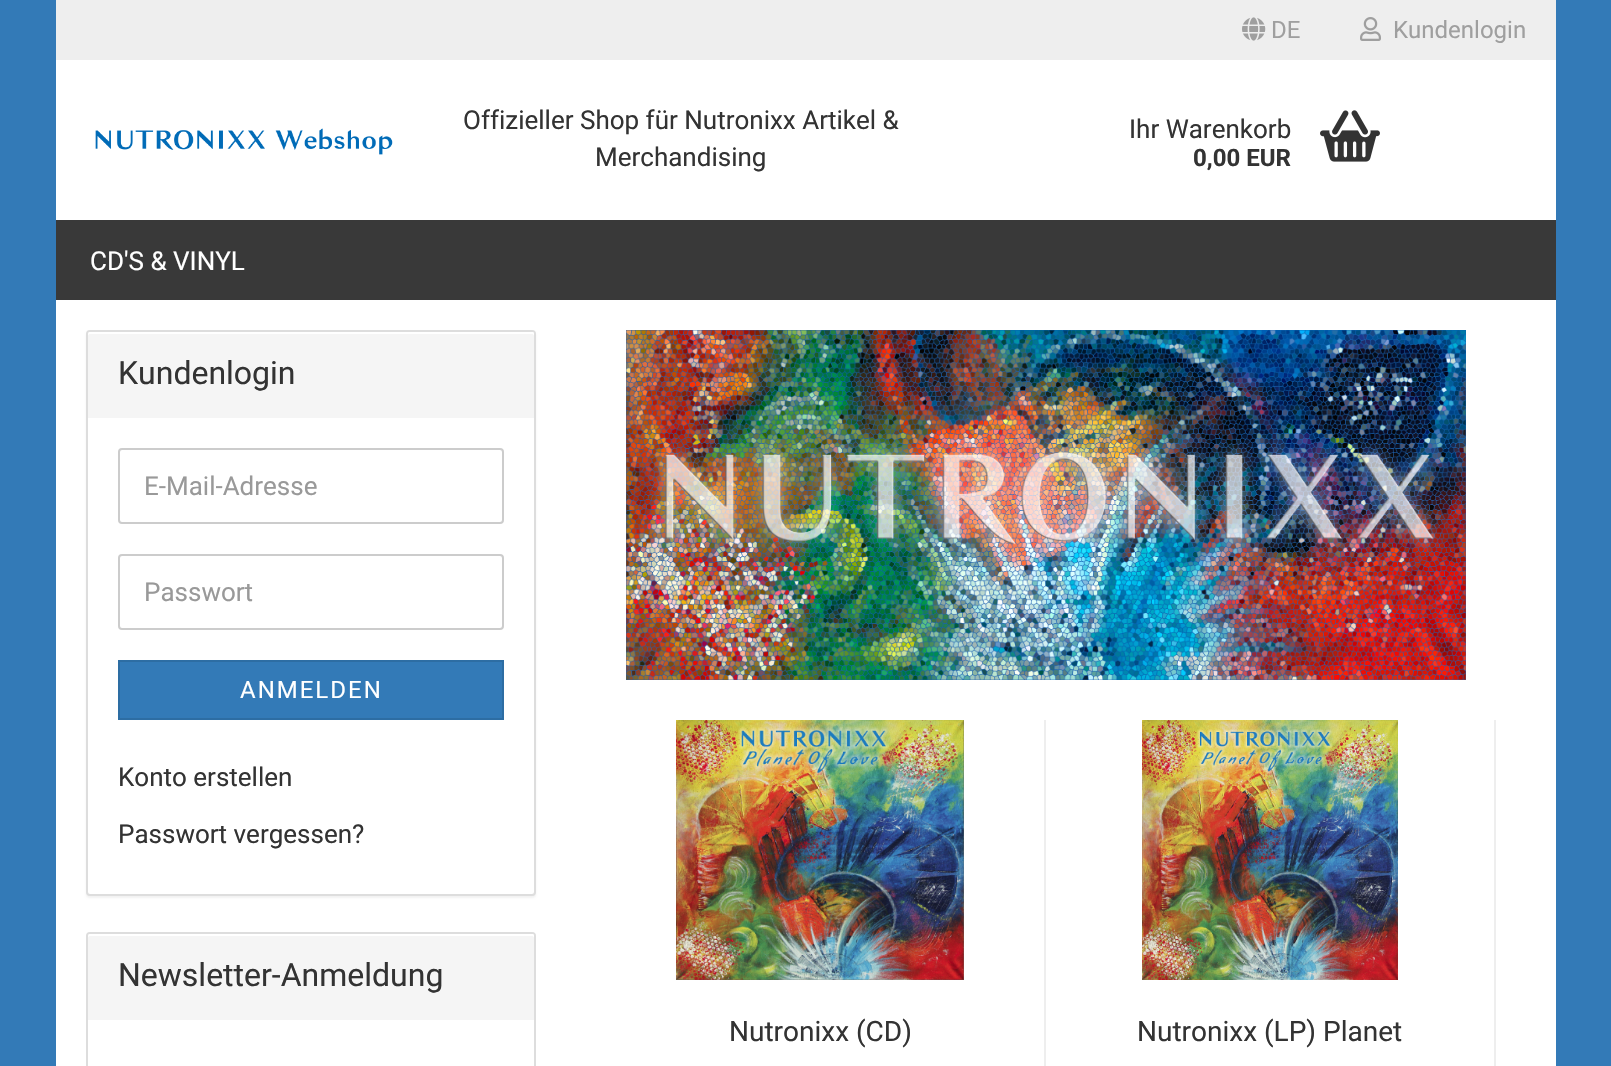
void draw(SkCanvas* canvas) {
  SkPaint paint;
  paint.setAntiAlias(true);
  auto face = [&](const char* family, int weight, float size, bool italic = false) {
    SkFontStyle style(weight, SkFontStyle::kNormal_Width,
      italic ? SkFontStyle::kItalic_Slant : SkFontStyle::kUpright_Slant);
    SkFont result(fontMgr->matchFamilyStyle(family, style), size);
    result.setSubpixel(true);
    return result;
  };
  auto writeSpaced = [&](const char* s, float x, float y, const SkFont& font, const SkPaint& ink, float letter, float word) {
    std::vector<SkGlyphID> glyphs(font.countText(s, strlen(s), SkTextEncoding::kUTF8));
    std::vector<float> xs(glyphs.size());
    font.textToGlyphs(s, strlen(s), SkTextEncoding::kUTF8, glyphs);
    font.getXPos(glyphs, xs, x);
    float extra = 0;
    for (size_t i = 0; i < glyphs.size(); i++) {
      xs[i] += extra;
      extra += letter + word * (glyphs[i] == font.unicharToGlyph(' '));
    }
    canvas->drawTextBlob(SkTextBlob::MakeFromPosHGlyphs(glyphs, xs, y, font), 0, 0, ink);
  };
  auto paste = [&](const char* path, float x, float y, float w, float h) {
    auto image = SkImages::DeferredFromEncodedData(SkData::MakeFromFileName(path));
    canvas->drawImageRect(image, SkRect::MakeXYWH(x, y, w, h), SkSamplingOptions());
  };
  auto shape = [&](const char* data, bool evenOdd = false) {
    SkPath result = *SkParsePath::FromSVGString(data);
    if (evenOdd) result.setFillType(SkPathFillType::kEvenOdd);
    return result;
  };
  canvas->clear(0xff337ab7);
  paint.setColor(0xffffffff);
  canvas->drawRect(SkRect::MakeXYWH(56, 60, 1500, 1006), paint);
  paint.setColor(0xffeeeeee);
  canvas->drawRect(SkRect::MakeXYWH(56, 0, 1500, 60), paint);
  paste("img/1.png", 1242, 17, 24, 24);
  paste("img/2.png", 1360, 17, 21, 24);
  paste("img/3.png", 95, 128, 298, 27);
  paste("img/4.png", 1320, 110, 60, 52);
  paint.setColor(0xff393939);
  canvas->drawRect(SkRect::MakeXYWH(56, 220, 1500, 80), paint);
  paint.setColor(0x0d000000);
  paint.setMaskFilter(SkMaskFilter::MakeBlur(kNormal_SkBlurStyle, 1));
  canvas->drawRoundRect(SkRect::MakeXYWH(86, 332, 450, 566), 4, 4, paint);
  paint.setMaskFilter(nullptr);
  paint.setColor(0xffffffff);
  canvas->drawRoundRect(SkRect::MakeXYWH(87, 331, 448, 564), 3, 3, paint);
  paint.setStroke(true);
  paint.setStrokeWidth(2);
  paint.setColor(0xffdddddd);
  canvas->drawRoundRect(SkRect::MakeXYWH(87, 331, 448, 564), 3, 3, paint);
  paint.setStroke(false);
  paint.setColor(0xfff5f5f5);
  canvas->drawPath(shape("M90 332H532C533 332 534 333 534 334V418H88V334C88 333 89 332 90 332Z"), paint);
  paint.setColor(0xffffffff);
  canvas->drawPath(shape("M90 334H532C533 334 534 335 534 336V333L533 332H90C88 332 88 334 88 336C88 335 89 334 90 334Z"), paint);
  paint.setStroke(true);
  paint.setColor(0xffcccccc);
  canvas->drawRoundRect(SkRect::MakeXYWH(119, 449, 384, 74), 3, 3, paint);
  canvas->drawRoundRect(SkRect::MakeXYWH(119, 555, 384, 74), 3, 3, paint);
  paint.setStroke(false);
  paint.setColor(0xff337ab7);
  canvas->drawRect(SkRect::MakeXYWH(119, 661, 384, 58), paint);
  paint.setStroke(true);
  paint.setColor(0xff2d6da3);
  canvas->drawRect(SkRect::MakeXYWH(119, 661, 384, 58), paint);
  paint.setColor(0xffdddddd);
  canvas->drawRoundRect(SkRect::MakeXYWH(87, 933, 448, 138), 3, 3, paint);
  paint.setStroke(false);
  paint.setColor(0xfff5f5f5);
  canvas->drawPath(shape("M90 934H532C533 934 534 935 534 936V1020H88V936C88 935 89 934 90 934Z"), paint);
  paint.setColor(0xffffffff);
  canvas->drawPath(shape("M90 936H532C533 936 534 937 534 938V935L533 934H90C88 934 88 936 88 938C88 937 89 936 90 936Z"), paint);
  paste("img/5.png", 626, 330, 840, 350);
  paint.setColor(0xffeeeeee);
  canvas->drawRect(SkRect::MakeXYWH(1044, 720, 2, 346), paint);
  paste("img/6.png", 676, 720, 288, 260);
  canvas->drawRect(SkRect::MakeXYWH(1494, 720, 2, 346), paint);
  paste("img/7.png", 1142, 720, 256, 260);
  auto f0 = face("Roboto", 400, 24);
  paint.setColor(0xff9f9f9f);
  canvas->drawString("DE", 1271, 38, f0, paint);
  canvas->drawString("Kundenlogin", 1393, 38, f0, paint);
  auto f1 = face("Roboto", 400, 26);
  paint.setColor(0xff333333);
  {
    const struct { const char* s; float x, y; } items[] = {
      {"Offizieller Shop für Nutronixx Artikel &", 463, 129},
      {"Merchandising", 595, 166},
      {"Ihr Warenkorb", 1129, 138},
    };
    for (auto [s, x, y] : items) {
      canvas->drawString(s, x, y, f1, paint);
    }
  }
  auto f2 = face("Roboto", 700, 24);
  canvas->drawString("0,00 EUR", 1193, 166, f2, paint);
  paint.setColor(0xffffffff);
  canvas->drawString("CD'S & VINYL", 90, 270, f1, paint);
  auto f3 = face("Roboto", 400, 32);
  paint.setColor(0xff333333);
  canvas->drawString("Kundenlogin", 118, 384, f3, paint);
  paint.setColor(0xff999999);
  canvas->drawString("E-Mail-Adresse", 144, 495, f1, paint);
  canvas->drawString("Passwort", 144, 601, f1, paint);
  paint.setColor(0xffffffff);
  writeSpaced("ANMELDEN", 240, 698, f0, paint, 2, 0);
  paint.setColor(0xff333333);
  canvas->drawString("Konto erstellen", 118, 786, f1, paint);
  canvas->drawString("Passwort vergessen?", 118, 843, f1, paint);
  canvas->drawString("Newsletter-Anmeldung", 118, 986, f3, paint);
  auto f4 = face("Roboto", 400, 28);
  canvas->drawString("Nutronixx (CD)", 729, 1041, f4, paint);
  canvas->drawString("Nutronixx (LP) Planet", 1137, 1041, f4, paint);
}
